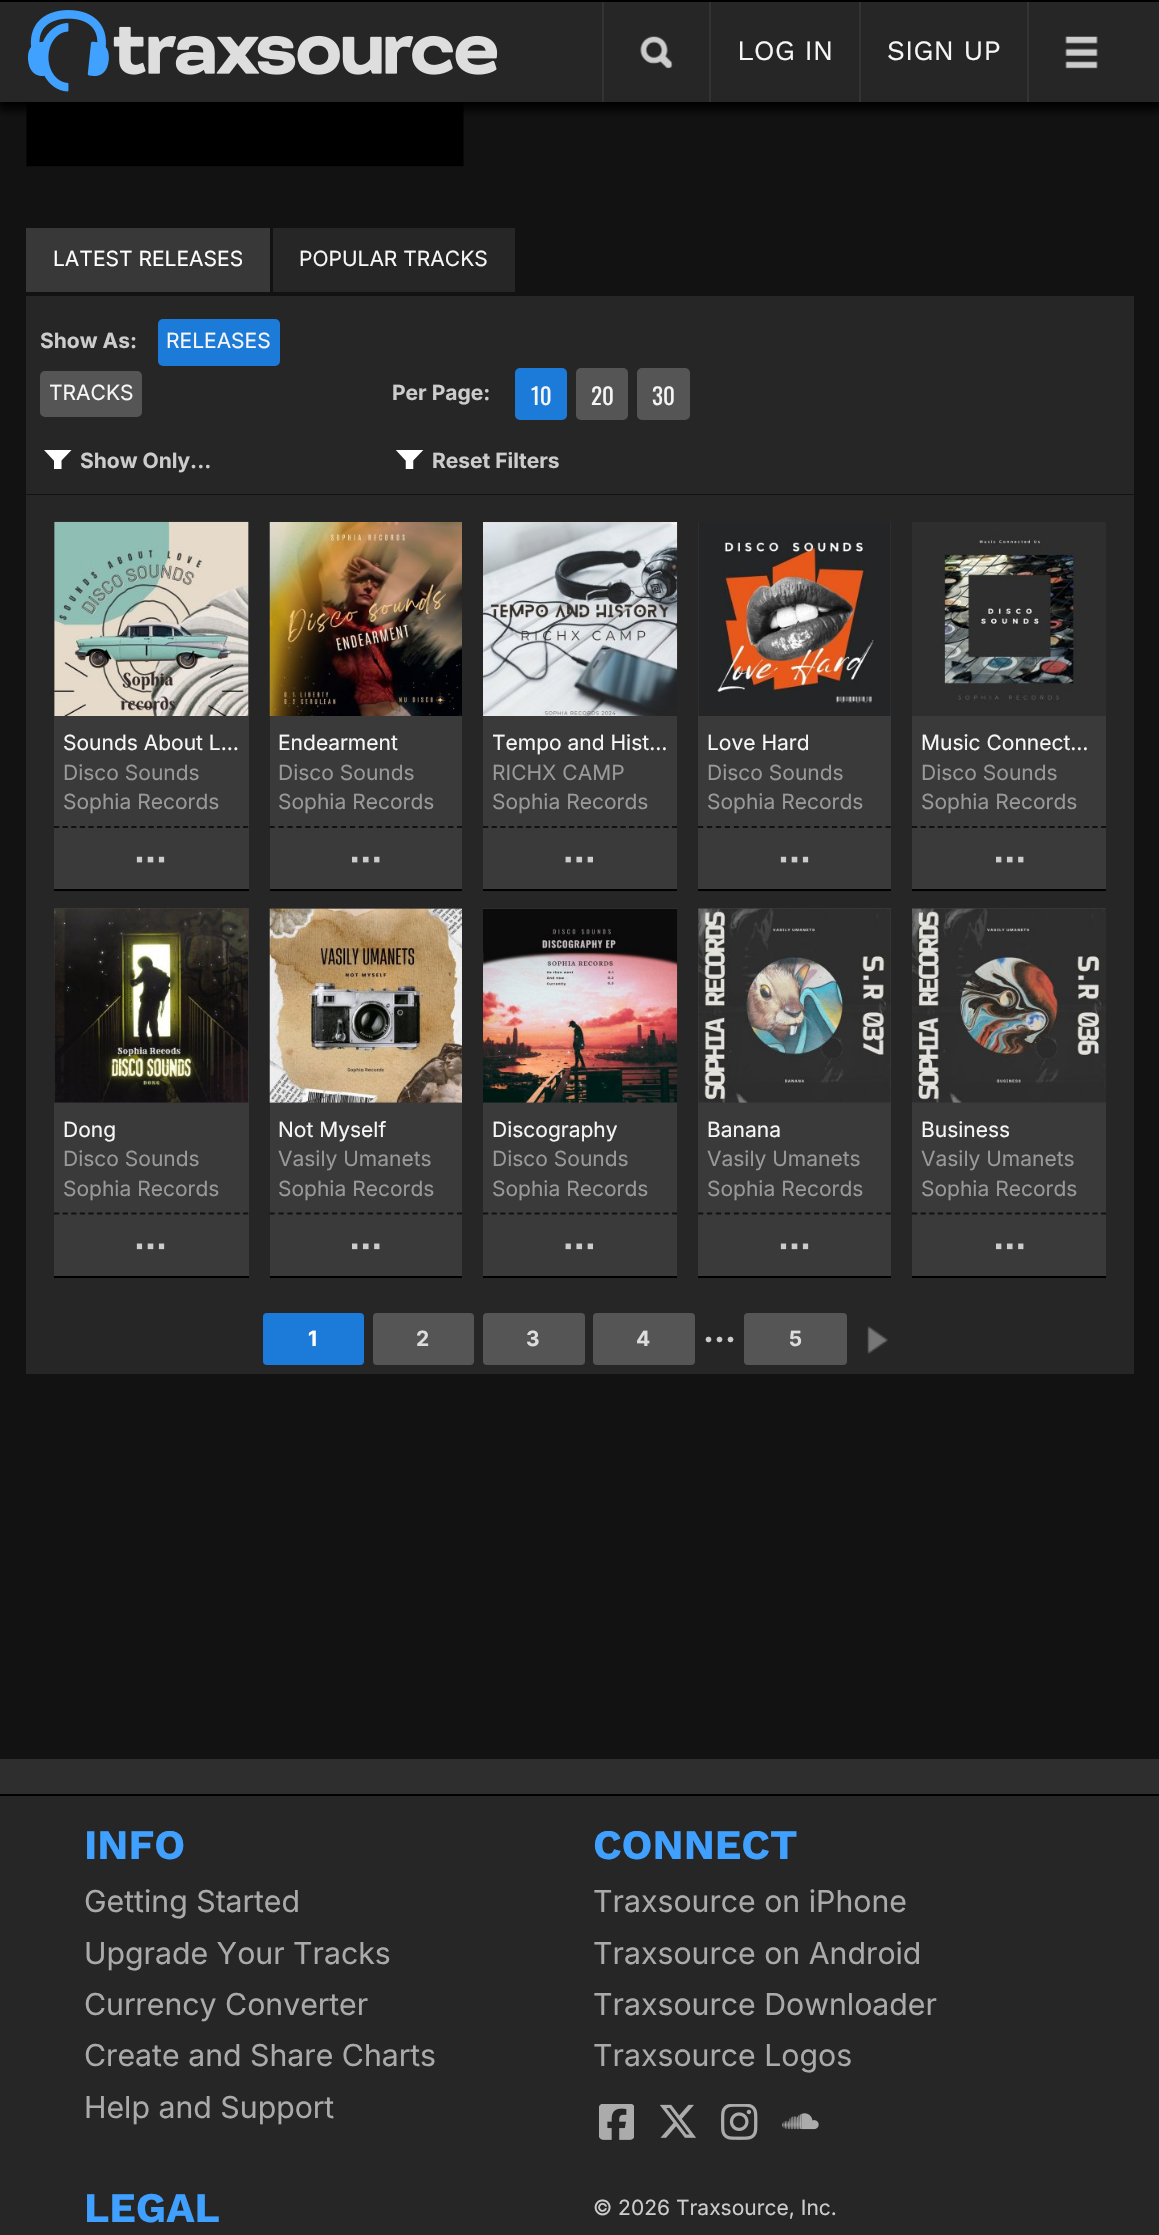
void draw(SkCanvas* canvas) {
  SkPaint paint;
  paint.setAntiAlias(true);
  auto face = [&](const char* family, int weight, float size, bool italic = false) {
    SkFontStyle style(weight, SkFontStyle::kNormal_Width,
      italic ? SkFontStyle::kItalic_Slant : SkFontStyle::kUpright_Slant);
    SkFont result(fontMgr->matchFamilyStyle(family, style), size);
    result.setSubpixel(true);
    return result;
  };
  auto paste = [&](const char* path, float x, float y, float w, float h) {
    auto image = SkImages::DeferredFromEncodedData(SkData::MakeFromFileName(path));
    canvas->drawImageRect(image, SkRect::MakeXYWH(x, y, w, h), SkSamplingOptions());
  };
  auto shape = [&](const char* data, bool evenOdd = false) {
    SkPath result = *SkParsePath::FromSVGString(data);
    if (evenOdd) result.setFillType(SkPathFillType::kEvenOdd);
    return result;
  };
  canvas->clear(0xff121212);
  paste("img/4.png", 26, 102, 438, 65);
  paint.setColor(0xff000000);
  paint.setMaskFilter(SkMaskFilter::MakeBlur(kNormal_SkBlurStyle, 4.5f));
  canvas->drawRect(SkRect::MakeXYWH(-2, 5, 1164, 105), paint);
  paint.setMaskFilter(nullptr);
  {
    const struct { float x, y, w, h; SkColor color; } items[] = {
      {0, 2, 1159, 100, 0xff262626},
      {602, 0, 2, 102, 0xff333333},
      {709, 0, 2, 102, 0xff333333},
      {859, 0, 2, 102, 0xff333333},
      {1027, 0, 2, 102, 0xff333333},
      {0, 0, 1159, 2, 0xff000000},
    };
    for (auto [x, y, w, h, color] : items) {
      paint.setColor(color);
      canvas->drawRect(SkRect::MakeXYWH(x, y, w, h), paint);
    }
  }
  paste("img/1.png", 27, 10, 471, 82);
  paste("img/2.png", 640, 36, 33, 33);
  paste("img/3.png", 1065, 36, 33, 33);
  {
    const struct { float x, y, w, h; SkColor color; } items[] = {
      {26, 228, 244, 64, 0xff383838},
      {273, 228, 242, 64, 0xff262626},
      {26, 296, 1108, 198, 0xff262626},
    };
    for (auto [x, y, w, h, color] : items) {
      paint.setColor(color);
      canvas->drawRect(SkRect::MakeXYWH(x, y, w, h), paint);
    }
  }
  paint.setColor(0xff1c7ad8);
  canvas->drawRoundRect(SkRect::MakeXYWH(158, 319, 122, 47), 5, 5, paint);
  paint.setColor(0xff555555);
  canvas->drawRoundRect(SkRect::MakeXYWH(40, 371, 102, 46), 5, 5, paint);
  paint.setColor(0xff1c7ad8);
  canvas->drawRoundRect(SkRect::MakeXYWH(515, 368, 52, 52), 5, 5, paint);
  paint.setColor(0xff555555);
  canvas->drawRoundRect(SkRect::MakeXYWH(576, 368, 52, 52), 5, 5, paint);
  canvas->drawRoundRect(SkRect::MakeXYWH(637, 368, 53, 52), 5, 5, paint);
  paste("img/5.png", 44, 450, 28, 19);
  paste("img/6.png", 396, 450, 28, 19);
  paint.setColor(0xff262626);
  canvas->drawRect(SkRect::MakeXYWH(26, 495, 1108, 879), paint);
  paint.setColor(0xff3a3a3a);
  canvas->drawRect(SkRect::MakeXYWH(54, 522, 195, 367), paint);
  paste("img/7.png", 54, 521, 195, 195);
  paint.setStroke(true);
  paint.setStrokeWidth(1.8f);
  paint.setColor(0xff111111);
  paint.setPathEffect(SkDashPathEffect::Make({{5.25f, 3.34f}}, 0));
  canvas->drawPath(shape("M54 827H248.5"), paint);
  paint.setPathEffect(nullptr);
  paint.setStroke(false);
  paint.setColor(0xff000000);
  canvas->drawRect(SkRect::MakeXYWH(54, 889, 195, 2), paint);
  paste("img/8.png", 136, 856, 29, 7);
  paint.setColor(0xff3a3a3a);
  canvas->drawRect(SkRect::MakeXYWH(270, 716, 192, 173), paint);
  paste("img/9.png", 269, 522, 193, 194);
  paint.setStroke(true);
  paint.setColor(0xff111111);
  paint.setPathEffect(SkDashPathEffect::Make({{5.25f, 3.68f}}, 0));
  canvas->drawPath(shape("M269.5 827H462"), paint);
  paint.setPathEffect(nullptr);
  paint.setStroke(false);
  paint.setColor(0xff000000);
  canvas->drawRect(SkRect::MakeXYWH(270, 889, 192, 2), paint);
  paste("img/10.png", 352, 856, 28, 7);
  paint.setColor(0xff3a3a3a);
  canvas->drawRect(SkRect::MakeXYWH(483, 716, 194, 173), paint);
  paste("img/11.png", 483, 522, 195, 194);
  paint.setStroke(true);
  paint.setColor(0xff111111);
  paint.setPathEffect(SkDashPathEffect::Make({{5.25f, 3.34f}}, 0));
  canvas->drawPath(shape("M483 827H677"), paint);
  paint.setPathEffect(nullptr);
  paint.setStroke(false);
  paint.setColor(0xff000000);
  canvas->drawRect(SkRect::MakeXYWH(483, 889, 194, 2), paint);
  paste("img/12.png", 565, 856, 28, 7);
  paint.setColor(0xff3a3a3a);
  canvas->drawRect(SkRect::MakeXYWH(698, 522, 193, 367), paint);
  paste("img/13.png", 698, 522, 193, 194);
  paint.setStroke(true);
  paint.setColor(0xff111111);
  paint.setPathEffect(SkDashPathEffect::Make({{5.25f, 3.68f}}, 0));
  canvas->drawPath(shape("M698 827H891"), paint);
  paint.setPathEffect(nullptr);
  paint.setStroke(false);
  paint.setColor(0xff000000);
  canvas->drawRect(SkRect::MakeXYWH(698, 889, 193, 2), paint);
  paste("img/8.png", 780, 856, 29, 7);
  paint.setColor(0xff3a3a3a);
  canvas->drawRect(SkRect::MakeXYWH(912, 716, 194, 173), paint);
  paste("img/14.png", 912, 522, 194, 194);
  paint.setStroke(true);
  paint.setColor(0xff111111);
  paint.setPathEffect(SkDashPathEffect::Make({{5.25f, 3.34f}}, 0));
  canvas->drawPath(shape("M912 827H1106"), paint);
  paint.setPathEffect(nullptr);
  paint.setStroke(false);
  paint.setColor(0xff000000);
  canvas->drawRect(SkRect::MakeXYWH(912, 889, 194, 2), paint);
  paste("img/10.png", 996, 856, 28, 7);
  paint.setColor(0xff3a3a3a);
  canvas->drawRect(SkRect::MakeXYWH(54, 908, 195, 368), paint);
  paste("img/15.png", 54, 908, 195, 195);
  paint.setStroke(true);
  paint.setColor(0xff111111);
  paint.setPathEffect(SkDashPathEffect::Make({{5.25f, 3.34f}}, 0));
  canvas->drawPath(shape("M54 1213.5H248.5"), paint);
  paint.setPathEffect(nullptr);
  paint.setStroke(false);
  paint.setColor(0xff000000);
  canvas->drawRect(SkRect::MakeXYWH(54, 1276, 195, 2), paint);
  paste("img/16.png", 136, 1243, 29, 7);
  paint.setColor(0xff3a3a3a);
  canvas->drawRect(SkRect::MakeXYWH(270, 908, 192, 368), paint);
  paste("img/17.png", 269, 908, 193, 195);
  paint.setStroke(true);
  paint.setColor(0xff111111);
  paint.setPathEffect(SkDashPathEffect::Make({{5.25f, 3.68f}}, 0));
  canvas->drawPath(shape("M269.5 1213.5H462"), paint);
  paint.setPathEffect(nullptr);
  paint.setStroke(false);
  paint.setColor(0xff000000);
  canvas->drawRect(SkRect::MakeXYWH(270, 1276, 192, 2), paint);
  paste("img/18.png", 352, 1243, 28, 7);
  paint.setColor(0xff3a3a3a);
  canvas->drawRect(SkRect::MakeXYWH(483, 908, 194, 368), paint);
  paste("img/19.png", 483, 908, 195, 195);
  paint.setStroke(true);
  paint.setColor(0xff111111);
  paint.setPathEffect(SkDashPathEffect::Make({{5.25f, 3.34f}}, 0));
  canvas->drawPath(shape("M483 1213.5H677"), paint);
  paint.setPathEffect(nullptr);
  paint.setStroke(false);
  paint.setColor(0xff000000);
  canvas->drawRect(SkRect::MakeXYWH(483, 1276, 194, 2), paint);
  paste("img/20.png", 565, 1243, 28, 7);
  paint.setColor(0xff3a3a3a);
  canvas->drawRect(SkRect::MakeXYWH(698, 908, 193, 368), paint);
  paste("img/21.png", 698, 908, 193, 195);
  paint.setStroke(true);
  paint.setColor(0xff111111);
  paint.setPathEffect(SkDashPathEffect::Make({{5.25f, 3.68f}}, 0));
  canvas->drawPath(shape("M698 1213.5H891"), paint);
  paint.setPathEffect(nullptr);
  paint.setStroke(false);
  paint.setColor(0xff000000);
  canvas->drawRect(SkRect::MakeXYWH(698, 1276, 193, 2), paint);
  paste("img/16.png", 780, 1243, 29, 7);
  paint.setColor(0xff3a3a3a);
  canvas->drawRect(SkRect::MakeXYWH(912, 908, 194, 368), paint);
  paste("img/22.png", 912, 908, 194, 195);
  paint.setStroke(true);
  paint.setColor(0xff111111);
  paint.setPathEffect(SkDashPathEffect::Make({{5.25f, 3.34f}}, 0));
  canvas->drawPath(shape("M912 1213.5H1106"), paint);
  paint.setPathEffect(nullptr);
  paint.setStroke(false);
  paint.setColor(0xff000000);
  canvas->drawRect(SkRect::MakeXYWH(912, 1276, 194, 2), paint);
  paste("img/18.png", 996, 1243, 28, 7);
  paint.setColor(0xff1c7ad8);
  canvas->drawRoundRect(SkRect::MakeXYWH(263, 1313, 101, 52), 4, 4, paint);
  paint.setColor(0xff555555);
  canvas->drawRoundRect(SkRect::MakeXYWH(373, 1313, 101, 52), 4, 4, paint);
  canvas->drawRoundRect(SkRect::MakeXYWH(483, 1313, 102, 52), 4, 4, paint);
  canvas->drawRoundRect(SkRect::MakeXYWH(593, 1313, 102, 52), 4, 4, paint);
  canvas->drawRoundRect(SkRect::MakeXYWH(744, 1313, 103, 52), 4, 4, paint);
  paste("img/23.png", 867, 1326, 21, 28);
  {
    const struct { float x, y, w, h; SkColor color; } items[] = {
      {0, 1796, 1159, 439, 0xff262626},
      {0, 1759, 1159, 35, 0xff2e2e2e},
      {0, 1794, 1159, 2, 0xff000000},
    };
    for (auto [x, y, w, h, color] : items) {
      paint.setColor(color);
      canvas->drawRect(SkRect::MakeXYWH(x, y, w, h), paint);
    }
  }
  paste("img/24.png", 599, 2104, 35, 36);
  paste("img/25.png", 660, 2104, 36, 34);
  paste("img/26.png", 721, 2104, 37, 36);
  paste("img/27.png", 782, 2113, 37, 17);
  auto f0 = face("Work Sans", 400, 28);
  paint.setColor(0xfff6f6f6);
  canvas->drawString("LOG IN", 737, 60, f0, paint);
  canvas->drawString("SIGN UP", 887, 60, f0, paint);
  auto f1 = face("Inter", 400, 21);
  paint.setColor(0xffffffff);
  canvas->drawString("LATEST RELEASES", 53, 266, f1, paint);
  paint.setColor(0xfff6f6f6);
  canvas->drawString("POPULAR TRACKS", 299, 266, f1, paint);
  auto f2 = face("Inter", 700, 21);
  paint.setColor(0xffcccccc);
  canvas->drawString("Show As:", 40, 348, f2, paint);
  paint.setColor(0xfff6f6f6);
  canvas->drawString("RELEASES", 166, 348, f1, paint);
  canvas->drawString("TRACKS", 49, 400, f1, paint);
  paint.setColor(0xffcccccc);
  canvas->drawString("Per Page:", 392, 400, f2, paint);
  auto f3 = face("Oswald", 400, 23);
  paint.setColor(0xfff6f6f6);
  {
    const struct { const char* s; float x, y; } items[] = {
      {"10", 531, 405},
      {"20", 591, 405},
      {"30", 652, 405},
    };
    for (auto [s, x, y] : items) {
      canvas->drawString(s, x, y, f3, paint);
    }
  }
  paint.setColor(0xffcccccc);
  canvas->drawString("Show Only...", 80, 468, f2, paint);
  canvas->drawString("Reset Filters", 432, 468, f2, paint);
  paint.setColor(0xfff6f6f6);
  canvas->drawString("Sounds About L…", 63, 750, f1, paint);
  paint.setColor(0xff999999);
  canvas->drawString("Disco Sounds", 63, 780, f1, paint);
  canvas->drawString("Sophia Records", 63, 809, f1, paint);
  paint.setColor(0xfff6f6f6);
  canvas->drawString("Endearment", 278, 750, f1, paint);
  paint.setColor(0xff999999);
  canvas->drawString("Disco Sounds", 278, 780, f1, paint);
  canvas->drawString("Sophia Records", 278, 809, f1, paint);
  paint.setColor(0xfff6f6f6);
  canvas->drawString("Tempo and Hist…", 492, 750, f1, paint);
  paint.setColor(0xff999999);
  canvas->drawString("RICHX CAMP", 492, 780, f1, paint);
  canvas->drawString("Sophia Records", 492, 809, f1, paint);
  paint.setColor(0xfff6f6f6);
  canvas->drawString("Love Hard", 707, 750, f1, paint);
  paint.setColor(0xff999999);
  canvas->drawString("Disco Sounds", 707, 780, f1, paint);
  canvas->drawString("Sophia Records", 707, 809, f1, paint);
  paint.setColor(0xfff6f6f6);
  canvas->drawString("Music Connect…", 921, 750, f1, paint);
  paint.setColor(0xff999999);
  canvas->drawString("Disco Sounds", 921, 780, f1, paint);
  canvas->drawString("Sophia Records", 921, 809, f1, paint);
  paint.setColor(0xfff6f6f6);
  canvas->drawString("Dong", 63, 1137, f1, paint);
  paint.setColor(0xff999999);
  canvas->drawString("Disco Sounds", 63, 1166, f1, paint);
  canvas->drawString("Sophia Records", 63, 1196, f1, paint);
  paint.setColor(0xfff6f6f6);
  canvas->drawString("Not Myself", 278, 1137, f1, paint);
  paint.setColor(0xff999999);
  canvas->drawString("Vasily Umanets", 278, 1166, f1, paint);
  canvas->drawString("Sophia Records", 278, 1196, f1, paint);
  paint.setColor(0xfff6f6f6);
  canvas->drawString("Discography", 492, 1137, f1, paint);
  paint.setColor(0xff999999);
  canvas->drawString("Disco Sounds", 492, 1166, f1, paint);
  canvas->drawString("Sophia Records", 492, 1196, f1, paint);
  paint.setColor(0xfff6f6f6);
  canvas->drawString("Banana", 707, 1137, f1, paint);
  paint.setColor(0xff999999);
  canvas->drawString("Vasily Umanets", 707, 1166, f1, paint);
  canvas->drawString("Sophia Records", 707, 1196, f1, paint);
  paint.setColor(0xfff6f6f6);
  canvas->drawString("Business", 921, 1137, f1, paint);
  paint.setColor(0xff999999);
  canvas->drawString("Vasily Umanets", 921, 1166, f1, paint);
  canvas->drawString("Sophia Records", 921, 1196, f1, paint);
  paint.setColor(0xffffffff);
  canvas->drawString("1", 308, 1346, f2, paint);
  paint.setColor(0xffdddddd);
  {
    const struct { const char* s; float x, y; } items[] = {
      {"2", 416, 1346},
      {"3", 526, 1346},
      {"4", 636, 1346},
    };
    for (auto [s, x, y] : items) {
      canvas->drawString(s, x, y, f2, paint);
    }
  }
  auto f4 = face("Inter", 700, 33);
  paint.setColor(0xffcccccc);
  canvas->drawString("...", 703, 1342, f4, paint);
  paint.setColor(0xffdddddd);
  canvas->drawString("5", 789, 1346, f2, paint);
  canvas->save();
  canvas->clipRect(SkRect::MakeXYWH(58, 1831, 1045, 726));
  auto f5 = face("Work Sans", 700, 42);
  paint.setColor(0xff40a0ff);
  canvas->drawString("INFO", 84, 1859, f5, paint);
  canvas->restore();
  auto f6 = face("Inter", 400, 30.25f);
  paint.setColor(0xffaaaaaa);
  {
    const struct { const char* s; float x, y; } items[] = {
      {"Getting Started", 84, 1912},
      {"Upgrade Your Tracks", 84, 1964},
      {"Currency Converter", 84, 2015},
      {"Create and Share Charts", 84, 2066},
      {"Help and Support", 84, 2118},
    };
    for (auto [s, x, y] : items) {
      canvas->drawString(s, x, y, f6, paint);
    }
  }
  canvas->save();
  canvas->clipRect(SkRect::MakeXYWH(58, 1831, 1045, 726));
  paint.setColor(0xff40a0ff);
  canvas->drawString("CONNECT", 593, 1859, f5, paint);
  canvas->restore();
  paint.setColor(0xffaaaaaa);
  {
    const struct { const char* s; float x, y; } items[] = {
      {"Traxsource on iPhone", 593, 1912},
      {"Traxsource on Android", 593, 1964},
      {"Traxsource Downloader", 593, 2015},
      {"Traxsource Logos", 593, 2066},
    };
    for (auto [s, x, y] : items) {
      canvas->drawString(s, x, y, f6, paint);
    }
  }
  paint.setColor(0xff40a0ff);
  canvas->drawString("LEGAL", 84, 2222, f5, paint);
  paint.setColor(0xffcccccc);
  canvas->drawString("© 2026 Traxsource, Inc.", 593, 2215, f1, paint);
}
